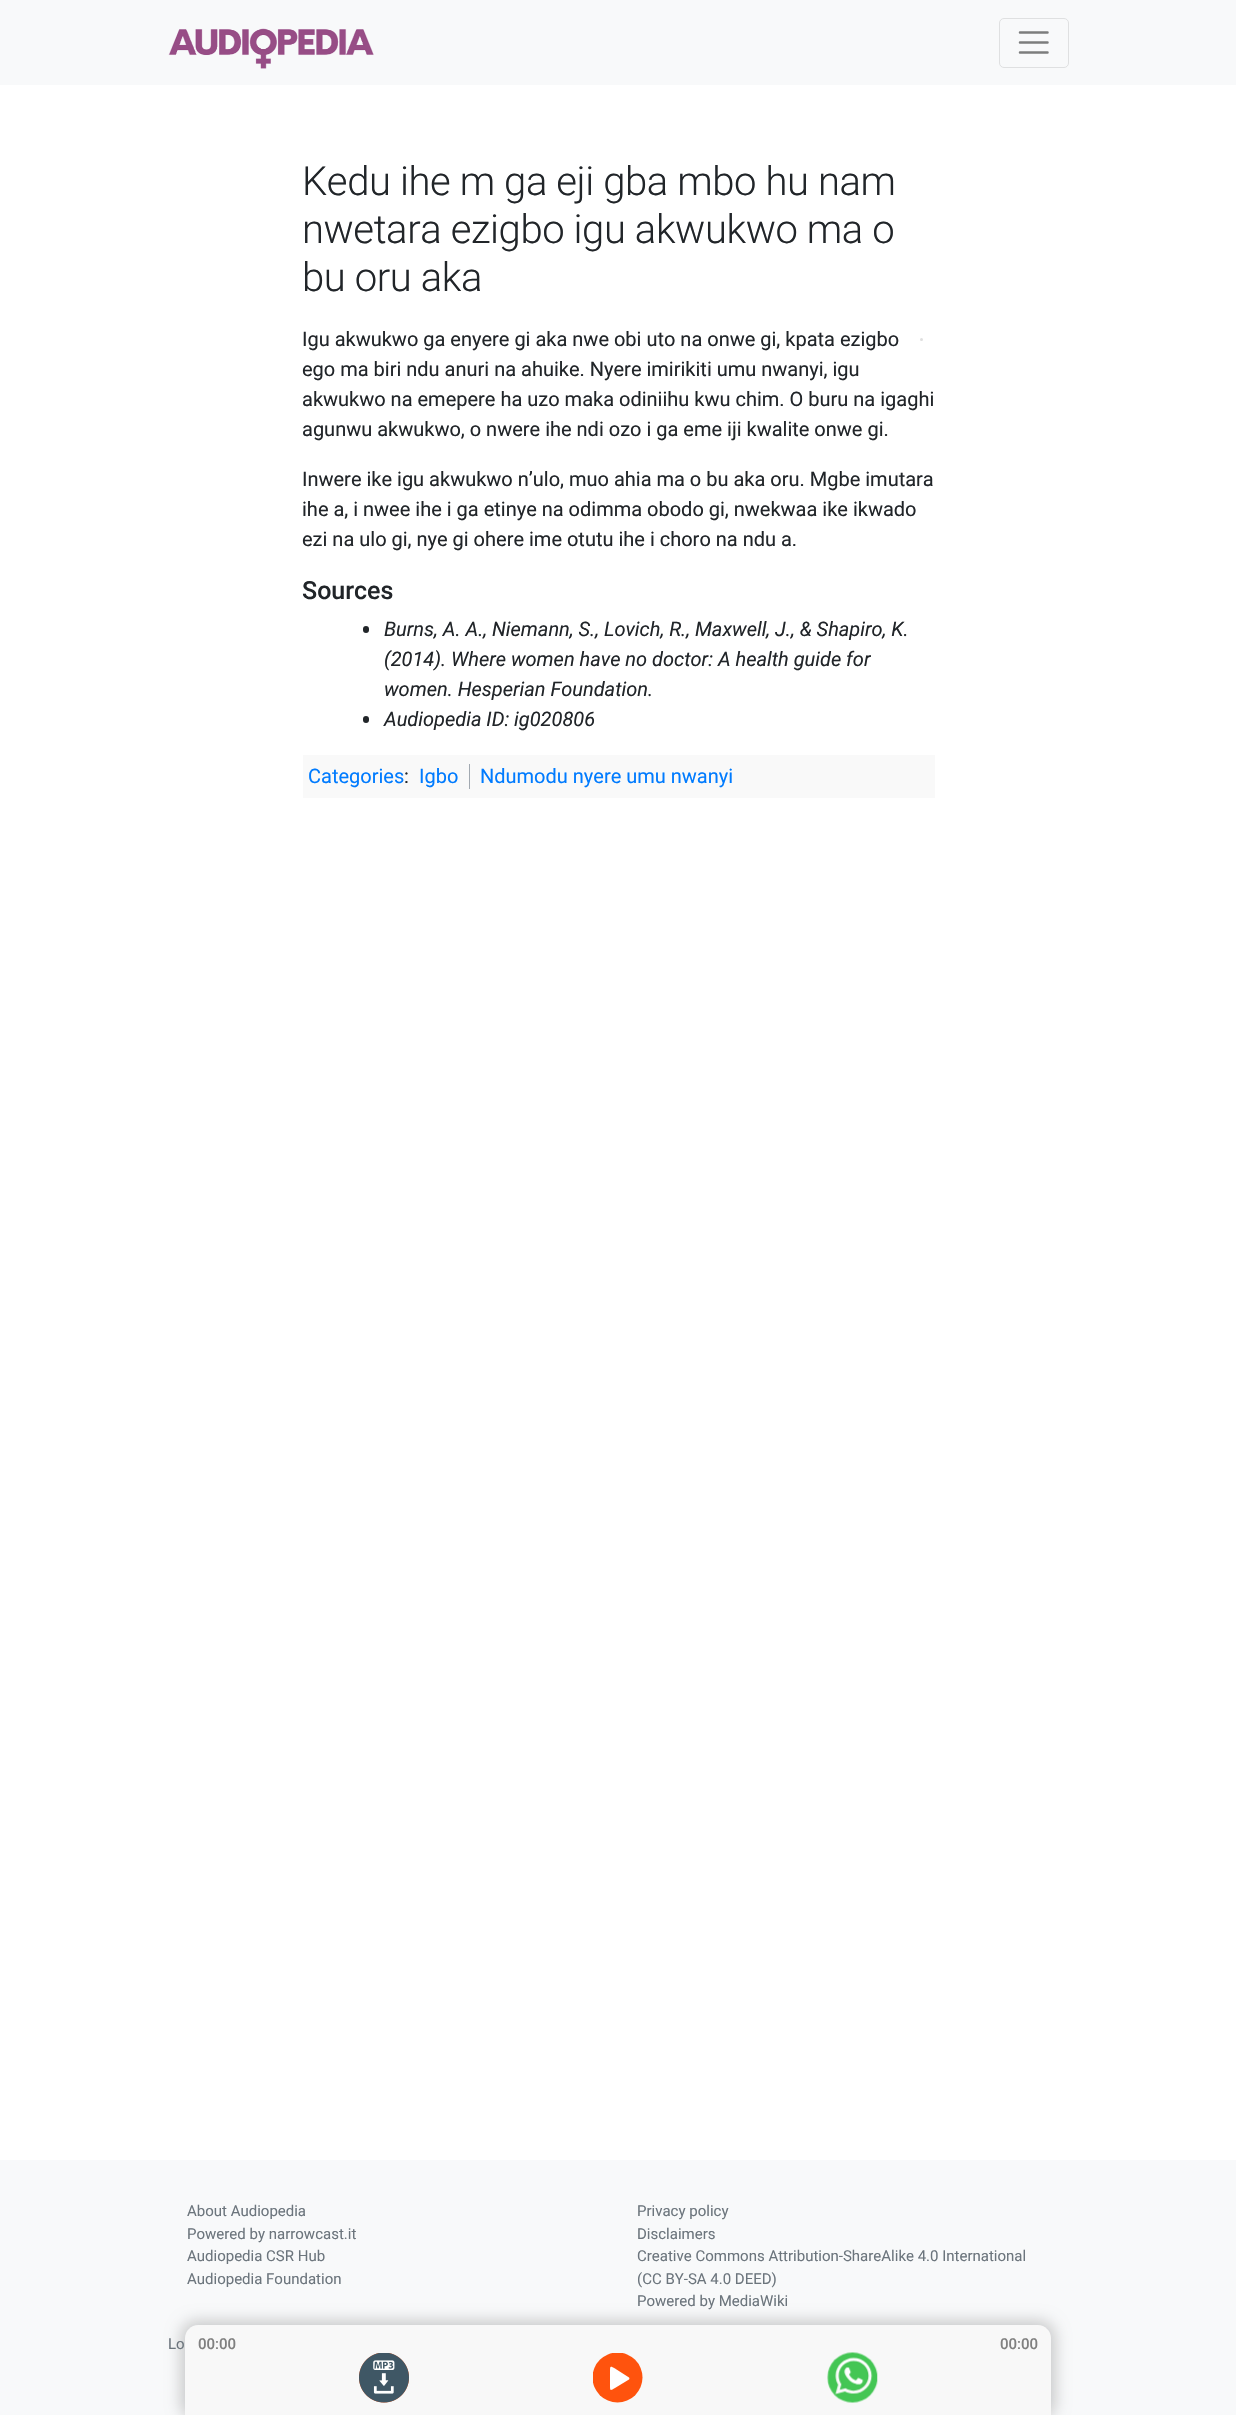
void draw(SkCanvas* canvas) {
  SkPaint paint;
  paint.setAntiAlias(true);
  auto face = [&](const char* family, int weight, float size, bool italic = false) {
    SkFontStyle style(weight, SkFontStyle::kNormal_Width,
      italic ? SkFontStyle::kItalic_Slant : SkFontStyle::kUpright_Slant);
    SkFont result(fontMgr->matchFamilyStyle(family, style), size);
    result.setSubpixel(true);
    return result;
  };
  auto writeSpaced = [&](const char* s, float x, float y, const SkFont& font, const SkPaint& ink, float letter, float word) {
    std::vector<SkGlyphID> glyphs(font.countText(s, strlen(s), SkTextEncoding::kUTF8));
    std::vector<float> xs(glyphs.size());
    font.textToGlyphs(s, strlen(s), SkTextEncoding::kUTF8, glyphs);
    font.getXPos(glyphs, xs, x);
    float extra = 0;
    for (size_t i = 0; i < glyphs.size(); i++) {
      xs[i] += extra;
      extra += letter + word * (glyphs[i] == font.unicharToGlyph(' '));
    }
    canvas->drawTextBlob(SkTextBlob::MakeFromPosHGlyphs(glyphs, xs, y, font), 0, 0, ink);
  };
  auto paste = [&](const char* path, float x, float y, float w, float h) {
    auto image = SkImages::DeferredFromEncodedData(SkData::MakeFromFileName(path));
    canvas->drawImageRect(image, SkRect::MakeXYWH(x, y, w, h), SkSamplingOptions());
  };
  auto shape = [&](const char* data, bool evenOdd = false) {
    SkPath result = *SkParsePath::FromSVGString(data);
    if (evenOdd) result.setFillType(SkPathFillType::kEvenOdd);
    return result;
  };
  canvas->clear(0xffffffff);
  paint.setColor(0xfff8f9fa);
  canvas->drawRect(SkRect::MakeXYWH(0, 0, 1236, 85), paint);
  paste("img/1.png", 168, 28, 206, 41);
  paint.setStroke(true);
  paint.setStrokeWidth(1);
  paint.setColor(0xffdfe0e1);
  canvas->drawRoundRect(SkRect::MakeXYWH(999.5f, 18.5f, 69, 49), 4.5f, 4.5f, paint);
  paint.setStrokeWidth(2.5f);
  paint.setStrokeCap(SkPaint::kRound_Cap);
  paint.setColor(0xff7c7d7d);
  canvas->drawPath(shape("M1020 32.5H1047.5M1020 42.5H1047.5M1020 52.5H1047.5"), paint);
  paint.setStroke(false);
  paint.setColor(0xffdfdfdf);
  canvas->drawCircle(921.5f, 339.5f, 1.5f, paint);
  paint.setColor(0xff212529);
  canvas->drawRoundRect(SkRect::MakeXYWH(363, 626, 6, 7), 3, 3, paint);
  canvas->drawRoundRect(SkRect::MakeXYWH(363, 716, 6, 7), 3, 3, paint);
  paint.setColor(0xfff8f9fa);
  canvas->drawRect(SkRect::MakeXYWH(0, 2160, 1236, 255), paint);
  paint.setColor(0x33000000);
  paint.setMaskFilter(SkMaskFilter::MakeBlur(kNormal_SkBlurStyle, 7.5f));
  canvas->drawRoundRect(SkRect::MakeXYWH(181, 2321, 874, 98), 16, 16, paint);
  paint.setMaskFilter(nullptr);
  paint.setColor(0xfff8f8f8);
  canvas->drawPath(shape("M198 2325H1038C1045 2325 1051 2331 1051 2338V2353H185V2338C185 2331 191 2325 198 2325Z"), paint);
  canvas->drawRect(SkRect::MakeXYWH(185, 2353, 866, 62), paint);
  paste("img/2.png", 359, 2353, 50, 50);
  canvas->save();
  canvas->clipRect(SkRect::MakeXYWH(593, 2353, 50, 50));
  paint.setColor(0xffff530d);
  canvas->drawCircle(617.5f, 2377.5f, 25, paint);
  canvas->restore();
  paint.setColor(0xffffffff);
  canvas->drawPath(shape("M629 2377.5L615 2368.5C610 2365.5 610 2366 610 2371.5V2385C610 2391 610 2391 615 2388L629 2379.5C629.5 2379 629.5 2378 629 2377.5Z", true), paint);
  paste("img/3.png", 827, 2352, 51, 51);
  paint.setColor(0xfff9f9f9);
  canvas->drawRect(SkRect::MakeXYWH(303, 755, 632, 43), paint);
  paint.setColor(0xffa2a9b1);
  canvas->drawRect(SkRect::MakeXYWH(469, 764, 1, 25), paint);
  auto f0 = face("Roboto", 300, 40);
  paint.setColor(0xff212529);
  {
    const struct { const char* s; float x, y; } items[] = {
      {"Kedu ihe m ga eji gba mbo hu nam", 302, 195},
      {"nwetara ezigbo igu akwukwo ma o", 302, 243},
      {"bu oru aka", 302, 291},
    };
    for (auto [s, x, y] : items) {
      writeSpaced(s, x, y, f0, paint, -0.4f, 0);
    }
  }
  auto f1 = face("Roboto", 400, 20);
  {
    const struct { const char* s; float x, y; } items[] = {
      {"Igu akwukwo ga enyere gi aka nwe obi uto na onwe gi, kpata ezigbo", 302, 346},
      {"ego ma biri ndu anuri na ahuike. Nyere imirikiti umu nwanyi, igu", 302, 376},
      {"akwukwo na emepere ha uzo maka odiniihu kwu chim. O buru na igaghi", 302, 406},
      {"agunwu akwukwo, o nwere ihe ndi ozo i ga eme iji kwalite onwe gi.", 302, 436},
      {"Inwere ike igu akwukwo n’ulo, muo ahia ma o bu aka oru. Mgbe imutara", 302, 486},
      {"ihe a, i nwee ihe i ga etinye na odimma obodo gi, nwekwaa ike ikwado", 302, 516},
      {"ezi na ulo gi, nye gi ohere ime otutu ihe i choro na ndu a.", 302, 546},
    };
    for (auto [s, x, y] : items) {
      canvas->drawString(s, x, y, f1, paint);
    }
  }
  auto f2 = face("Roboto", 500, 25);
  canvas->drawString("Sources", 302, 599, f2, paint);
  auto f3 = face("Roboto", 400, 20, true);
  {
    const struct { const char* s; float x, y; } items[] = {
      {"Burns, A. A., Niemann, S., Lovich, R., Maxwell, J., & Shapiro, K.", 384, 636},
      {"(2014). Where women have no doctor: A health guide for", 384, 666},
      {"women. Hesperian Foundation.", 384, 696},
      {"Audiopedia ID: ig020806", 384, 726},
    };
    for (auto [s, x, y] : items) {
      canvas->drawString(s, x, y, f3, paint);
    }
  }
  auto f4 = face("Roboto", 500, 15);
  paint.setColor(0xff808080);
  canvas->drawString("00:00", 198, 2349, f4, paint);
  canvas->drawString("00:00", 1000, 2349, f4, paint);
  paint.setColor(0xff007bff);
  canvas->drawString("Categories", 308, 783, f1, paint);
  paint.setColor(0xff212529);
  canvas->drawString(":", 404, 783, f1, paint);
  paint.setColor(0xff007bff);
  canvas->drawString("Igbo", 419, 783, f1, paint);
  canvas->drawString("Ndumodu nyere umu nwanyi", 480, 783, f1, paint);
  auto f5 = face("Roboto", 400, 15);
  paint.setColor(0xff6c757d);
  {
    const struct { const char* s; float x, y; } items[] = {
      {"About Audiopedia", 187, 2216},
      {"Powered by narrowcast.it", 187, 2239},
      {"Audiopedia CSR Hub", 187, 2261},
      {"Audiopedia Foundation", 187, 2284},
      {"Privacy policy", 637, 2216},
      {"Disclaimers", 637, 2239},
      {"Creative Commons Attribution-ShareAlike 4.0 International", 637, 2261},
      {"(CC BY-SA 4.0 DEED)", 637, 2284},
      {"Powered by MediaWiki", 637, 2306},
      {"Lo", 168, 2349},
    };
    for (auto [s, x, y] : items) {
      canvas->drawString(s, x, y, f5, paint);
    }
  }
}
